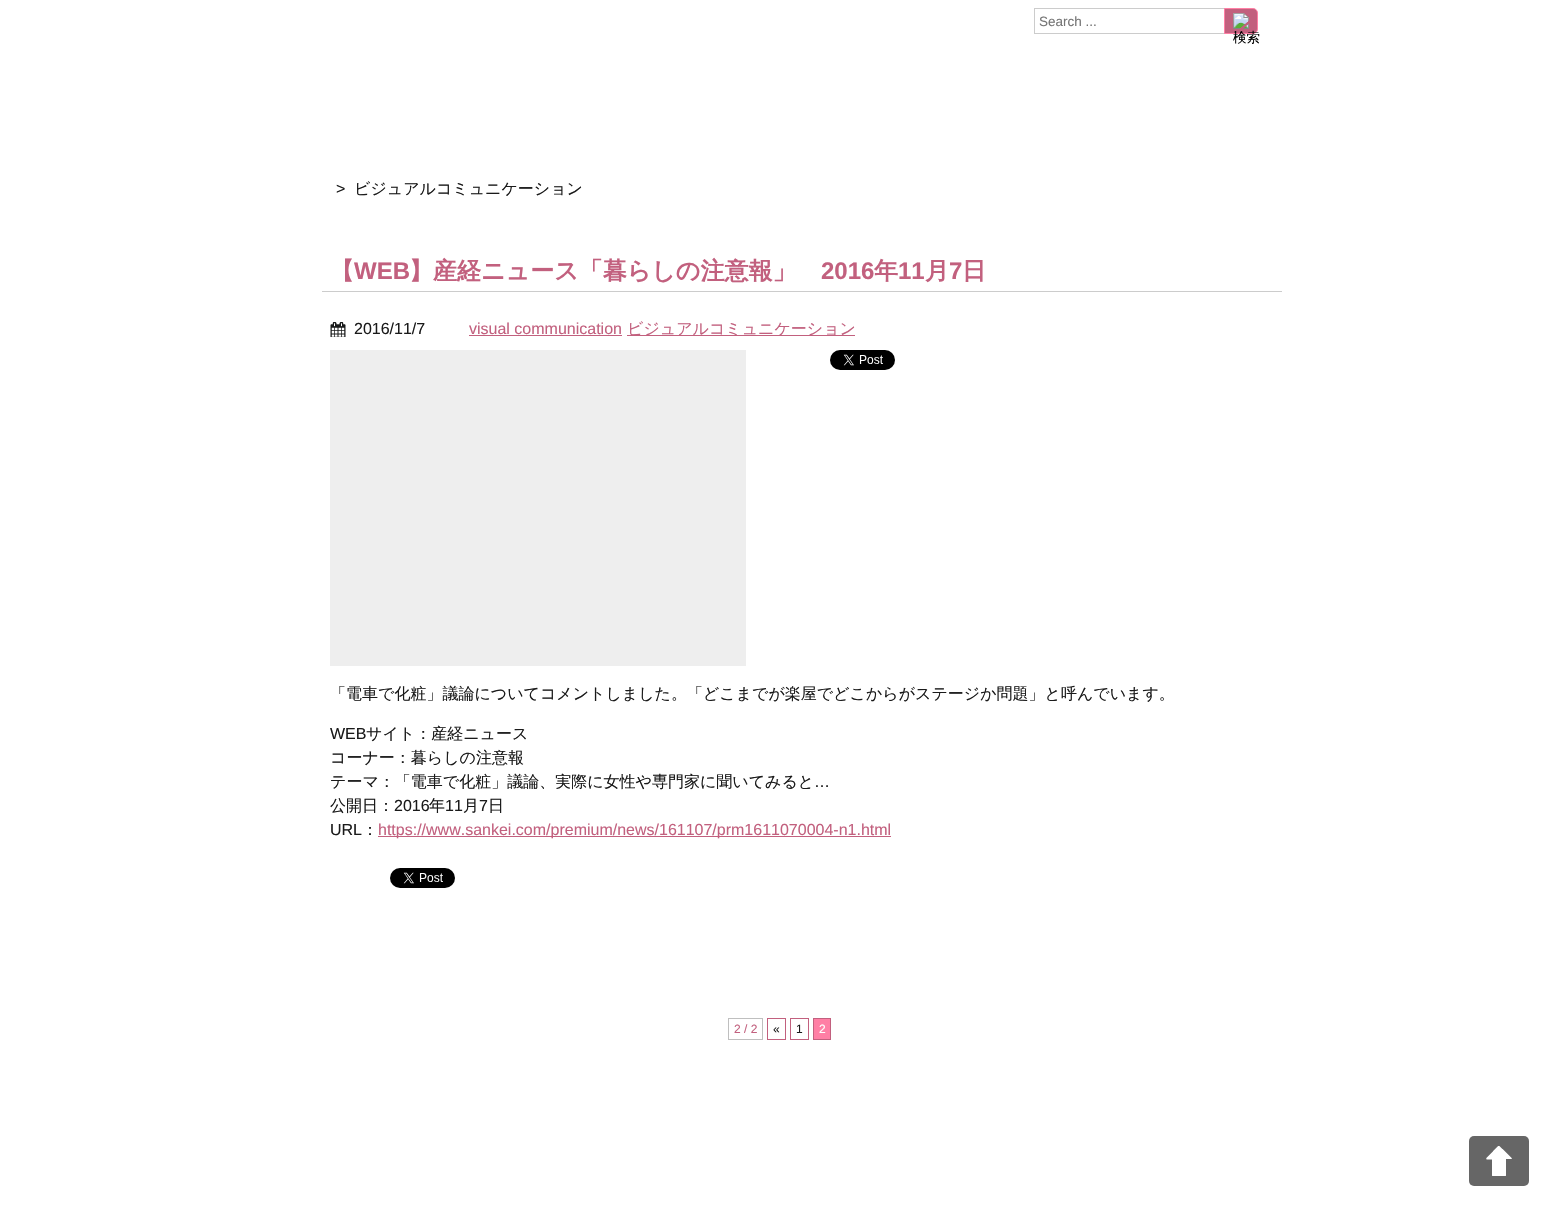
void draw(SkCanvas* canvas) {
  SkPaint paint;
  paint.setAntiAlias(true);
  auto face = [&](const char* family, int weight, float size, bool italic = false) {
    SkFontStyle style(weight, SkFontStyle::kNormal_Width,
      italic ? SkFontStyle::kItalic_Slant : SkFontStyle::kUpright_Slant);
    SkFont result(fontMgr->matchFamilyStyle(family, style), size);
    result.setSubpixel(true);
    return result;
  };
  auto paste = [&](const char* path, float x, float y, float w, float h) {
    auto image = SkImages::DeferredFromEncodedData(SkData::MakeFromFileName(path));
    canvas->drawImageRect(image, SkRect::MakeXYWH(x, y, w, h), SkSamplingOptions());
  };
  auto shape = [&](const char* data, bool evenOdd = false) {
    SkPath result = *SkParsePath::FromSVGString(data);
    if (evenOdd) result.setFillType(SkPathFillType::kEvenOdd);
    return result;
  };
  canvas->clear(0xffffffff);
  paint.setStroke(true);
  paint.setStrokeWidth(1);
  paint.setColor(0xffcccccc);
  canvas->drawRect(SkRect::MakeXYWH(1034.5f, 8.5f, 191, 25), paint);
  paint.setStroke(false);
  paint.setColor(0xffc2607e);
  canvas->drawPath(shape("M1224.5 8.5H1253C1255.5 8.5 1257.5 10.5 1257.5 13V29C1257.5 31.5 1255.5 33.5 1253 33.5H1224.5Z"), paint);
  paint.setStroke(true);
  paint.setColor(0xffff7fa5);
  canvas->drawPath(shape("M1224.5 8.5H1253C1255.5 8.5 1257.5 10.5 1257.5 13V29C1257.5 31.5 1255.5 33.5 1253 33.5H1224.5Z"), paint);
  paste("img/1.png", 1233, 13, 16, 20);
  paint.setStroke(false);
  paint.setColor(0xffcccccc);
  canvas->drawRect(SkRect::MakeXYWH(322, 291, 960, 1), paint);
  paste("img/2.png", 330, 322, 16, 15);
  {
    const struct { float x, y, w, h; SkColor color; } items[] = {
      {469, 335, 153, 1, 0xffc2607e},
      {627, 335, 228, 1, 0xffc2607e},
      {330, 350, 416, 316, 0xffeeeeee},
    };
    for (auto [x, y, w, h, color] : items) {
      paint.setColor(color);
      canvas->drawRect(SkRect::MakeXYWH(x, y, w, h), paint);
    }
  }
  paste("img/3.png", 830, 350, 65, 20);
  paint.setColor(0xffc2607e);
  canvas->drawRect(SkRect::MakeXYWH(378, 836, 513, 1), paint);
  paste("img/3.png", 390, 868, 65, 20);
  paint.setStroke(true);
  paint.setColor(0xffbfbfbf);
  canvas->drawRect(SkRect::MakeXYWH(728.5f, 1018.5f, 34, 21), paint);
  paint.setColor(0xffc2607e);
  canvas->drawRect(SkRect::MakeXYWH(767.5f, 1018.5f, 18, 21), paint);
  canvas->drawRect(SkRect::MakeXYWH(790.5f, 1018.5f, 18, 21), paint);
  paint.setStroke(false);
  paint.setColor(0xffff7fa5);
  canvas->drawRect(SkRect::MakeXYWH(813.5f, 1018.5f, 17, 21), paint);
  paint.setStroke(true);
  paint.setColor(0xffc2607e);
  canvas->drawRect(SkRect::MakeXYWH(813.5f, 1018.5f, 17, 21), paint);
  paint.setStroke(false);
  paint.setColor(0xff666666);
  canvas->drawRoundRect(SkRect::MakeXYWH(1469, 1136, 60, 50), 5, 5, paint);
  paste("img/4.png", 1486, 1146, 26, 30);
  auto f0 = face("Liberation Sans", 400, 13.5f);
  paint.setColor(0xff757575);
  canvas->drawString("Search ...", 1039, 26, f0, paint);
  auto f1 = face("WenQuanYi Zen Hei", 500, 13.5f);
  paint.setColor(0xff000000);
  canvas->drawString("検索", 1233, 42, f1, paint);
  auto f2 = face("Liberation Sans", 400, 16);
  paint.setColor(0xff1a1a1a);
  canvas->drawString(">", 336, 194, f2, paint);
  auto f3 = face("WenQuanYi Zen Hei", 500, 16);
  canvas->drawString("ビジュアルコミュニケーション", 354, 194, f3, paint);
  auto f4 = face("WenQuanYi Zen Hei", 700, 24);
  paint.setColor(0xffc2607e);
  canvas->drawString("【", 330, 279, f4, paint);
  auto f5 = face("Liberation Sans", 700, 24);
  canvas->drawString("WEB", 354, 279, f5, paint);
  canvas->drawString("】産経ニュース「暮らしの注意報」", 409, 279, f4, paint);
  canvas->drawString("2016", 821, 279, f5, paint);
  canvas->drawString("年", 874, 279, f4, paint);
  canvas->drawString("11", 898, 279, f5, paint);
  canvas->drawString("月", 925, 279, f4, paint);
  canvas->drawString("7", 949, 279, f5, paint);
  canvas->drawString("日", 962, 279, f4, paint);
  paint.setColor(0xff1a1a1a);
  canvas->drawString("2016/11/7", 354, 334, f2, paint);
  paint.setColor(0xffc2607e);
  canvas->drawString("visual communication", 469, 334, f2, paint);
  canvas->drawString("ビジュアルコミュニケーション", 627, 334, f3, paint);
  paint.setColor(0xff1a1a1a);
  canvas->drawString("「電車で化粧」議論についてコメントしました。「どこまでが楽屋でどこからがステージか問題」と呼んでいます。", 330, 699, f3, paint);
  canvas->drawString("WEB", 330, 739, f2, paint);
  {
    const struct { const char* s; float x, y; } items[] = {
      {"サイト：産経ニュース", 366, 739},
      {"コーナー：暮らしの注意報", 330, 763},
      {"テーマ：「電車で化粧」議論、実際に女性や専門家に聞いてみると", 330, 787},
    };
    for (auto [s, x, y] : items) {
      canvas->drawString(s, x, y, f3, paint);
    }
  }
  canvas->drawString("…", 814, 787, f2, paint);
  canvas->drawString("公開日：", 330, 811, f3, paint);
  canvas->drawString("2016", 394, 811, f2, paint);
  canvas->drawString("年", 429, 811, f3, paint);
  canvas->drawString("11", 445, 811, f2, paint);
  canvas->drawString("月", 463, 811, f3, paint);
  canvas->drawString("7", 479, 811, f2, paint);
  canvas->drawString("日", 488, 811, f3, paint);
  canvas->drawString("URL", 330, 835, f2, paint);
  canvas->drawString("：", 362, 835, f3, paint);
  paint.setColor(0xffc2607e);
  canvas->drawString("https://www.sankei.com/premium/news/161107/prm1611070004-n1.html", 378, 835, f2, paint);
  auto f6 = face("Liberation Sans", 400, 12);
  canvas->drawString("2 / 2", 734, 1033, f6, paint);
  paint.setColor(0xff1a1a1a);
  canvas->drawString("«", 773, 1033, f6, paint);
  canvas->drawString("1", 796, 1033, f6, paint);
  paint.setColor(0xffffffff);
  canvas->drawString("2", 819, 1033, f6, paint);
}
